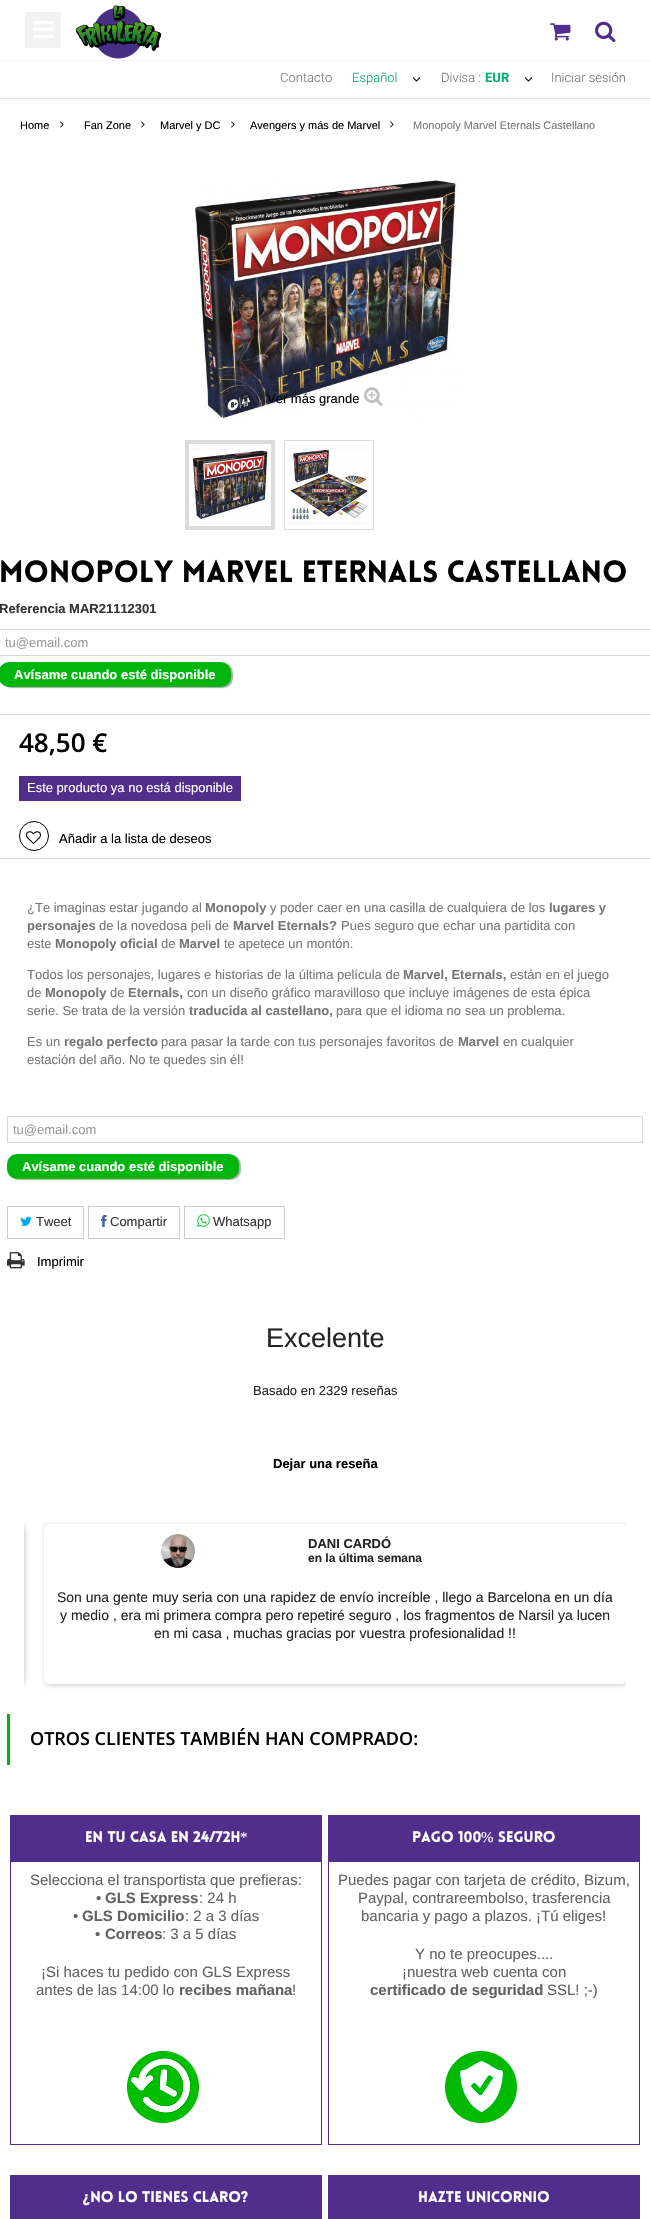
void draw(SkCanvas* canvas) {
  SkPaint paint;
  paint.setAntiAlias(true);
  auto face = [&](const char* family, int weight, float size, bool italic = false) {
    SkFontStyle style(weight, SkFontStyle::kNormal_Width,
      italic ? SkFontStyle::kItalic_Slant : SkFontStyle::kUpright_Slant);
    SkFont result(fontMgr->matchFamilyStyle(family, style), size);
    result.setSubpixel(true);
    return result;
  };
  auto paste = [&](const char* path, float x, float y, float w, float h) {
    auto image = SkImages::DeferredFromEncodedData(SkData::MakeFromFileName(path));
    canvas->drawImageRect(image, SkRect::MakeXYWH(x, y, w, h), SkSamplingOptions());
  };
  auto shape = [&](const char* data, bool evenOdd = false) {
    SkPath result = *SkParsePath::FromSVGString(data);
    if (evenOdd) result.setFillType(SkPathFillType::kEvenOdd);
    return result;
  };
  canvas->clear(0xffffffff);
  canvas->save();
  canvas->clipRect(SkRect::MakeXYWH(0, 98, 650, 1));
  paint.setColor(0x1a000000);
  paint.setMaskFilter(SkMaskFilter::MakeBlur(kNormal_SkBlurStyle, 0.5f));
  canvas->drawRect(SkRect::MakeXYWH(0, 62, 650, 37), paint);
  paint.setMaskFilter(nullptr);
  canvas->restore();
  paint.setColor(0xfff2f2f2);
  canvas->drawRect(SkRect::MakeXYWH(25, 12, 36, 36), paint);
  paste("img/1.png", 33, 21, 21, 17);
  paste("img/2.png", 75, 5, 87, 54);
  paste("img/3.png", 550, 23, 21, 18);
  paste("img/4.png", 595, 21, 21, 22);
  canvas->drawRect(SkRect::MakeXYWH(0, 60, 650, 1), paint);
  paste("img/5.png", 412, 77, 9, 5);
  paste("img/5.png", 524, 77, 9, 5);
  paste("img/6.png", 60, 121, 4, 7);
  paste("img/6.png", 141, 121, 4, 7);
  paste("img/6.png", 231, 121, 4, 7);
  paste("img/6.png", 390, 121, 4, 7);
  paste("img/7.png", 195, 180, 264, 239);
  paste("img/8.png", 364, 387, 19, 19);
  paint.setStroke(true);
  paint.setStrokeWidth(1);
  paint.setColor(0xffdbdbdb);
  canvas->drawRect(SkRect::MakeXYWH(185.5f, 440.5f, 89, 89), paint);
  paint.setStroke(false);
  paint.setColor(0xfffbfbfb);
  canvas->drawRect(SkRect::MakeXYWH(190, 445, 80, 80), paint);
  paint.setStroke(true);
  paint.setStrokeWidth(3);
  paint.setColor(0xffdbdbdb);
  canvas->drawRect(SkRect::MakeXYWH(187.5f, 442.5f, 85, 85), paint);
  paste("img/9.png", 190, 450, 80, 73);
  paint.setStrokeWidth(1);
  canvas->drawRect(SkRect::MakeXYWH(284.5f, 440.5f, 89, 89), paint);
  paint.setStroke(false);
  paint.setColor(0xfffbfbfb);
  canvas->drawRect(SkRect::MakeXYWH(289, 445, 80, 80), paint);
  paste("img/10.png", 289, 450, 80, 72);
  paint.setStroke(true);
  paint.setColor(0xffd6d4d4);
  canvas->drawRect(SkRect::MakeXYWH(-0.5f, 629.5f, 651, 26), paint);
  paint.setStroke(false);
  paint.setColor(0xffaaaaaa);
  paint.setMaskFilter(SkMaskFilter::MakeBlur(kNormal_SkBlurStyle, 0.5f));
  canvas->drawRoundRect(SkRect::MakeXYWH(1, 663, 232, 25), 10, 10, paint);
  paint.setMaskFilter(nullptr);
  paint.setColor(0xff00b50d);
  canvas->drawRoundRect(SkRect::MakeXYWH(-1, 662, 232, 25), 10, 10, paint);
  paint.setStroke(true);
  paint.setColor(0xffd3d7d7);
  canvas->drawRect(SkRect::MakeXYWH(-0.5f, 714.5f, 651, 144), paint);
  paint.setStroke(false);
  paint.setColor(0xff512e8c);
  canvas->drawRect(SkRect::MakeXYWH(19, 776, 222, 25), paint);
  paint.setStroke(true);
  paint.setColor(0xff000000);
  canvas->drawCircle(34, 836, 14.5f, paint);
  paste("img/11.png", 26, 831, 15, 13);
  paint.setColor(0xffd6d4d4);
  canvas->drawRect(SkRect::MakeXYWH(7.5f, 1116.5f, 635, 26), paint);
  paint.setStroke(false);
  paint.setColor(0xffaaaaaa);
  paint.setMaskFilter(SkMaskFilter::MakeBlur(kNormal_SkBlurStyle, 0.5f));
  canvas->drawRoundRect(SkRect::MakeXYWH(9, 1155, 232, 25), 10, 10, paint);
  paint.setMaskFilter(nullptr);
  paint.setColor(0xff00b50d);
  canvas->drawRoundRect(SkRect::MakeXYWH(7, 1154, 232, 25), 10, 10, paint);
  paint.setStroke(true);
  paint.setColor(0xffcccccc);
  canvas->drawRect(SkRect::MakeXYWH(7.5f, 1206.5f, 76, 32), paint);
  paste("img/12.png", 20, 1216, 12, 10);
  canvas->drawRect(SkRect::MakeXYWH(88.5f, 1206.5f, 91, 32), paint);
  paste("img/13.png", 101, 1215, 6, 12);
  canvas->drawRect(SkRect::MakeXYWH(184.5f, 1206.5f, 100, 32), paint);
  paste("img/14.png", 197, 1214, 13, 13);
  paste("img/15.png", 7, 1252, 18, 17);
  canvas->save();
  canvas->clipRect(SkRect::MakeXYWH(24, 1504, 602, 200));
  paint.setStroke(false);
  paint.setMaskFilter(SkMaskFilter::MakeBlur(kNormal_SkBlurStyle, 2.5f));
  canvas->drawRoundRect(SkRect::MakeXYWH(-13, 1525, 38, 160), 5, 5, paint);
  paint.setMaskFilter(nullptr);
  canvas->restore();
  canvas->save();
  canvas->clipRect(SkRect::MakeXYWH(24, 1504, 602, 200));
  canvas->clipPath(shape("M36 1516H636V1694H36ZM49 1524H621C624 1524 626 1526 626 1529V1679C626 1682 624 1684 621 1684H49C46 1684 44 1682 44 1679V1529C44 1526 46 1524 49 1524Z", true), true);
  paint.setMaskFilter(SkMaskFilter::MakeBlur(kNormal_SkBlurStyle, 2.5f));
  canvas->drawRoundRect(SkRect::MakeXYWH(45, 1525, 582, 160), 5, 5, paint);
  paint.setMaskFilter(nullptr);
  canvas->restore();
  paste("img/16.png", 161, 1534, 34, 34);
  paint.setColor(0xff00b50d);
  canvas->drawRect(SkRect::MakeXYWH(7, 1714, 3, 51), paint);
  paint.setStroke(true);
  paint.setColor(0xff512e8c);
  canvas->drawRect(SkRect::MakeXYWH(10.5f, 1815.5f, 311, 329), paint);
  paint.setStroke(false);
  canvas->drawRect(SkRect::MakeXYWH(11, 1816, 310, 46), paint);
  paste("img/17.png", 127, 2051, 72, 72);
  paint.setStroke(true);
  canvas->drawRect(SkRect::MakeXYWH(328.5f, 1815.5f, 311, 329), paint);
  paint.setStroke(false);
  canvas->drawRect(SkRect::MakeXYWH(329, 1816, 310, 46), paint);
  paste("img/18.png", 445, 2051, 72, 72);
  paint.setStroke(true);
  canvas->drawRect(SkRect::MakeXYWH(10.5f, 2175.5f, 311, 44), paint);
  paint.setStroke(false);
  canvas->drawRect(SkRect::MakeXYWH(11, 2176, 310, 43), paint);
  paint.setStroke(true);
  canvas->drawRect(SkRect::MakeXYWH(328.5f, 2175.5f, 311, 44), paint);
  paint.setStroke(false);
  canvas->drawRect(SkRect::MakeXYWH(329, 2176, 310, 43), paint);
  auto f0 = face("Roboto", 300, 13);
  paint.setColor(0xff777777);
  canvas->drawString("Contacto", 280, 82, f0, paint);
  paint.setColor(0xff00b06c);
  canvas->drawString("Español", 352, 82, f0, paint);
  paint.setColor(0xff777777);
  canvas->drawString("Divisa :", 441, 82, f0, paint);
  auto f1 = face("Roboto", 700, 13);
  paint.setColor(0xff00b06c);
  canvas->drawString("EUR", 485, 82, f1, paint);
  paint.setColor(0xff777777);
  canvas->drawString("Iniciar sesión", 551, 82, f0, paint);
  auto f2 = face("Liberation Sans", 400, 11);
  paint.setColor(0xff000000);
  {
    const struct { const char* s; float x, y; } items[] = {
      {"Home", 20, 129},
      {"Fan Zone", 84, 129},
      {"Marvel y DC", 160, 129},
      {"Avengers y más de Marvel", 250, 129},
    };
    for (auto [s, x, y] : items) {
      canvas->drawString(s, x, y, f2, paint);
    }
  }
  paint.setColor(0xff777777);
  canvas->drawString("Monopoly Marvel Eternals Castellano", 413, 129, f2, paint);
  auto f3 = face("Liberation Sans", 400, 13);
  paint.setColor(0xff000000);
  canvas->drawString("Ver más grande", 267, 403, f3, paint);
  auto f4 = face("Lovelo", 900, 30);
  canvas->drawString("Monopoly Marvel Eternals Castellano", -1, 582, f4, paint);
  auto f5 = face("Liberation Sans", 700, 13);
  paint.setColor(0xff333333);
  canvas->drawString("Referencia MAR21112301", -1, 613, f5, paint);
  paint.setColor(0xff9c9b9b);
  canvas->drawString("tu@email.com", 5, 647, f3, paint);
  paint.setColor(0xffffffff);
  canvas->drawString("Avísame cuando esté disponible", 14, 679, f5, paint);
  auto f6 = face("Open Sans", 600, 26);
  paint.setColor(0xff000000);
  canvas->drawString("48,50 €", 19, 752, f6, paint);
  paint.setColor(0xffffffff);
  canvas->drawString("Este producto ya no está disponible", 27, 792, f3, paint);
  paint.setColor(0xff000000);
  canvas->drawString("Añadir a la lista de deseos", 59, 843, f3, paint);
  paint.setColor(0xff777777);
  canvas->drawString("¿Te imaginas estar jugando al", 27, 912, f3, paint);
  canvas->drawString("Monopoly", 205, 912, f5, paint);
  canvas->drawString("y poder caer en una casilla de cualquiera de los", 270, 912, f3, paint);
  canvas->drawString("lugares y", 549, 912, f5, paint);
  canvas->drawString("personajes", 27, 930, f5, paint);
  canvas->drawString("de la novedosa peli de", 99, 930, f3, paint);
  canvas->drawString("Marvel Eternals?", 233, 930, f5, paint);
  canvas->drawString("Pues seguro que echar una partidita con", 341, 930, f3, paint);
  canvas->drawString("este", 27, 948, f3, paint);
  canvas->drawString("Monopoly oficial", 55, 948, f5, paint);
  canvas->drawString("de", 161, 948, f3, paint);
  canvas->drawString("Marvel", 179, 948, f5, paint);
  canvas->drawString("te apetece un montón.", 224, 948, f3, paint);
  canvas->drawString("Todos los personajes, lugares e historias de la última película de", 27, 979, f3, paint);
  canvas->drawString("Marvel, Eternals,", 403, 979, f5, paint);
  canvas->drawString("están en el juego", 510, 979, f3, paint);
  canvas->drawString("de", 27, 997, f3, paint);
  canvas->drawString("Monopoly", 45, 997, f5, paint);
  canvas->drawString("de", 110, 997, f3, paint);
  canvas->drawString("Eternals,", 128, 997, f5, paint);
  canvas->drawString("con un diseño gráfico maravilloso que incluye imágenes de esta épica", 187, 997, f3, paint);
  canvas->drawString("serie. Se trata de la versión", 27, 1015, f3, paint);
  canvas->drawString("traducida al castellano,", 189, 1015, f5, paint);
  canvas->drawString("para que el idioma no sea un problema.", 336, 1015, f3, paint);
  canvas->drawString("Es un", 27, 1046, f3, paint);
  canvas->drawString("regalo perfecto", 64, 1046, f5, paint);
  canvas->drawString("para pasar la tarde con tus personajes favoritos de", 161, 1046, f3, paint);
  canvas->drawString("Marvel", 458, 1046, f5, paint);
  canvas->drawString("en cualquier", 503, 1046, f3, paint);
  canvas->drawString("estación del año. No te quedes sin él!", 27, 1064, f3, paint);
  paint.setColor(0xff9c9b9b);
  canvas->drawString("tu@email.com", 13, 1134, f3, paint);
  paint.setColor(0xffffffff);
  canvas->drawString("Avísame cuando esté disponible", 22, 1171, f5, paint);
  paint.setColor(0xff333333);
  {
    const struct { const char* s; float x, y; } items[] = {
      {"Tweet", 36, 1226},
      {"Compartir", 110, 1226},
      {"Whatsapp", 213, 1226},
    };
    for (auto [s, x, y] : items) {
      canvas->drawString(s, x, y, f3, paint);
    }
  }
  paint.setColor(0xff000000);
  canvas->drawString("Imprimir", 37, 1266, f3, paint);
  auto f7 = face("Liberation Sans", 400, 27);
  paint.setColor(0xff252525);
  canvas->drawString("Excelente", 266, 1347, f7, paint);
  canvas->drawString("Basado en 2329 reseñas", 253, 1395, f3, paint);
  paint.setColor(0xff000000);
  canvas->drawString("Dejar una reseña", 273, 1468, f5, paint);
  paint.setColor(0xff252525);
  canvas->drawString("DANI CARDÓ", 308, 1548, f5, paint);
  auto f8 = face("Liberation Sans", 700, 12);
  canvas->drawString("en la última semana", 308, 1562, f8, paint);
  auto f9 = face("Liberation Sans", 400, 14);
  {
    const struct { const char* s; float x, y; } items[] = {
      {"Son una gente muy seria con una rapidez de envío increíble , llego a Barcelona en un día", 57, 1602},
      {"y medio , era mi primera compra pero repetiré seguro , los fragmentos de Narsil ya lucen", 60, 1620},
      {"en mi casa , muchas gracias por vuestra profesionalidad !!", 154, 1638},
    };
    for (auto [s, x, y] : items) {
      canvas->drawString(s, x, y, f9, paint);
    }
  }
  auto f10 = face("Open Sans", 600, 18);
  paint.setColor(0xff000000);
  canvas->drawString("OTROS CLIENTES TAMBIÉN HAN COMPRADO:", 30, 1745, f10, paint);
  auto f11 = face("Lovelo", 900, 15);
  paint.setColor(0xffffffff);
  canvas->drawString("EN TU CASA EN 24/72H", 85, 1842, f11, paint);
  auto f12 = face("Liberation Serif", 400, 15);
  canvas->drawString("*", 240, 1842, f12, paint);
  auto f13 = face("Liberation Sans", 400, 15);
  paint.setColor(0xff626262);
  canvas->drawString("Selecciona el transportista que prefieras:", 30, 1885, f13, paint);
  canvas->drawString("•", 96, 1903, f13, paint);
  auto f14 = face("Liberation Sans", 700, 15);
  canvas->drawString("GLS Express", 105, 1903, f14, paint);
  canvas->drawString(": 24 h", 199, 1903, f13, paint);
  canvas->drawString("•", 73, 1921, f13, paint);
  canvas->drawString("GLS Domicilio", 82, 1921, f14, paint);
  canvas->drawString(": 2 a 3 días", 185, 1921, f13, paint);
  canvas->drawString("•", 95, 1939, f13, paint);
  canvas->drawString("Correos", 105, 1939, f14, paint);
  {
    const struct { const char* s; float x, y; } items[] = {
      {": 3 a 5 días", 162, 1939},
      {"¡Si haces tu pedido con GLS Express", 41, 1977},
      {"antes de las 14:00 lo", 36, 1995},
    };
    for (auto [s, x, y] : items) {
      canvas->drawString(s, x, y, f13, paint);
    }
  }
  canvas->drawString("recibes mañana", 179, 1995, f14, paint);
  canvas->drawString("!", 292, 1995, f13, paint);
  paint.setColor(0xffffffff);
  canvas->drawString("PAGO 100", 412, 1842, f11, paint);
  canvas->drawString("%", 481, 1842, f12, paint);
  canvas->drawString("SEGURO", 498, 1842, f11, paint);
  paint.setColor(0xff626262);
  {
    const struct { const char* s; float x, y; } items[] = {
      {"Puedes pagar con tarjeta de crédito, Bizum,", 338, 1885},
      {"Paypal, contrareembolso, trasferencia", 358, 1903},
      {"bancaria y pago a plazos. ¡Tú eliges!", 361, 1921},
      {"Y no te preocupes....", 415, 1959},
      {"¡nuestra web cuenta con", 402, 1977},
    };
    for (auto [s, x, y] : items) {
      canvas->drawString(s, x, y, f13, paint);
    }
  }
  canvas->drawString("certificado de seguridad", 370, 1995, f14, paint);
  canvas->drawString("SSL! ;-)", 547, 1995, f13, paint);
  paint.setColor(0xffffffff);
  canvas->drawString("¿NO LO TIENES CLARO?", 83, 2202, f11, paint);
  canvas->drawString("HAZTE UNICORNIO", 418, 2202, f11, paint);
}
